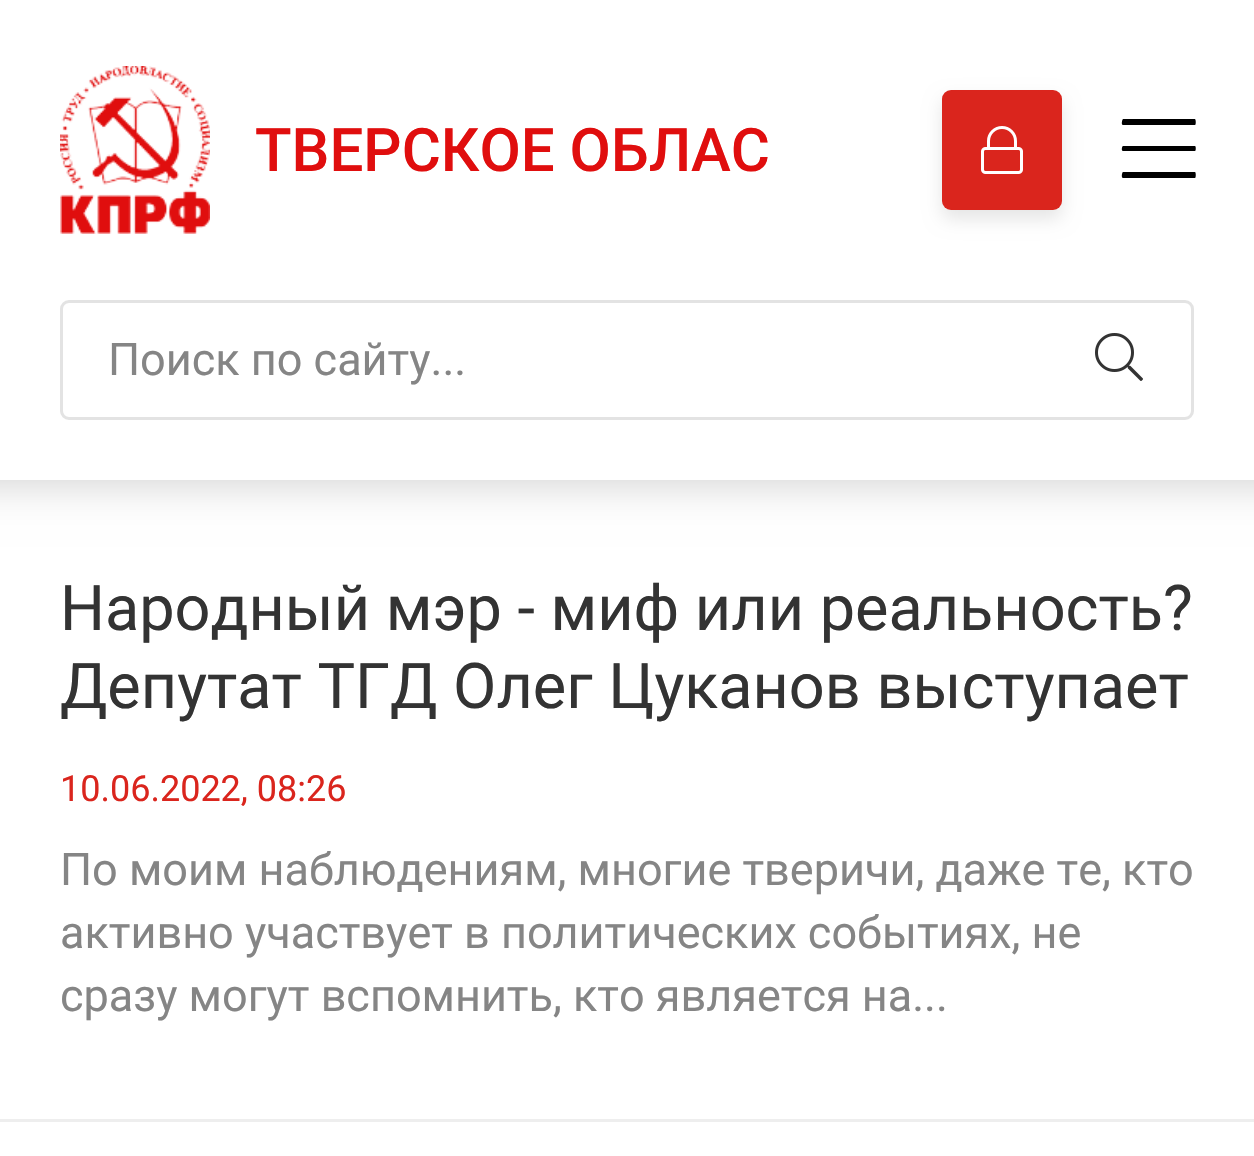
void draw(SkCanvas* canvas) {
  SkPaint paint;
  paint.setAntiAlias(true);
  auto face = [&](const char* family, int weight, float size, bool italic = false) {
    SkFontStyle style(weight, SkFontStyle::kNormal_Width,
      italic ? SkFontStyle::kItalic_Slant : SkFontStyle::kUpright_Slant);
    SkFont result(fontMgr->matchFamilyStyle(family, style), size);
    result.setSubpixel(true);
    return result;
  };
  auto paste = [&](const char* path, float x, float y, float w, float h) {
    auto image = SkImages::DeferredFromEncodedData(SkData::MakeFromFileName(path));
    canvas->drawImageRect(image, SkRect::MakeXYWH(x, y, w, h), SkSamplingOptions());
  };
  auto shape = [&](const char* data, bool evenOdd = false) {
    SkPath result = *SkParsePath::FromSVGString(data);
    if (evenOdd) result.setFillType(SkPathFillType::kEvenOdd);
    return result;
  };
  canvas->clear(0xffffffff);
  paint.setColor(0x33000000);
  paint.setMaskFilter(SkMaskFilter::MakeBlur(kNormal_SkBlurStyle, 22.5f));
  canvas->drawRect(SkRect::MakeXYWH(-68, 0, 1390, 480), paint);
  paint.setMaskFilter(nullptr);
  paint.setColor(0xffffffff);
  canvas->drawRect(SkRect::MakeXYWH(0, 0, 1254, 480), paint);
  paste("img/1.png", 60, 66, 150, 168);
  paint.setColor(0x1a000000);
  paint.setMaskFilter(SkMaskFilter::MakeBlur(kNormal_SkBlurStyle, 9));
  canvas->drawRoundRect(SkRect::MakeXYWH(942, 99, 120, 120), 9, 9, paint);
  paint.setMaskFilter(nullptr);
  paint.setColor(0xffda251d);
  canvas->drawRoundRect(SkRect::MakeXYWH(942, 90, 120, 120), 9, 9, paint);
  paste("img/2.png", 981, 126, 42, 48);
  paint.setColor(0xff000000);
  canvas->drawPath(shape("M1195 125H1123C1121 125 1122 120 1123 119H1195C1196 120 1196 125 1195 125ZM1195 151H1123C1121 151 1122 146 1123 146H1195C1196 146 1196 151 1195 151ZM1195 178H1123C1121 178 1122 172 1123 172H1195C1196 172 1196 178 1195 178Z"), paint);
  paint.setStroke(true);
  paint.setStrokeWidth(3);
  paint.setColor(0xffe3e3e3);
  canvas->drawRoundRect(SkRect::MakeXYWH(61.5f, 301.5f, 1131, 117), 7.5f, 7.5f, paint);
  paste("img/3.png", 1095, 333, 48, 48);
  paint.setStroke(false);
  paint.setColor(0xffeeeeee);
  canvas->drawRect(SkRect::MakeXYWH(0, 1119, 1254, 3), paint);
  auto f0 = face("Roboto", 500, 60);
  paint.setColor(0xffe00e0e);
  canvas->drawString("ТВЕРСКОЕ ОБЛАС...", 255, 171, f0, paint);
  auto f1 = face("Roboto", 400, 45);
  paint.setColor(0xff858585);
  canvas->drawString("Поиск по сайту...", 108, 375, f1, paint);
  auto f2 = face("Roboto", 400, 63);
  paint.setColor(0xff333333);
  canvas->drawString("Народный мэр - миф или реальность?", 60, 630, f2, paint);
  canvas->drawString("Депутат ТГД Олег Цуканов выступает", 60, 708, f2, paint);
  auto f3 = face("Roboto", 400, 36);
  paint.setColor(0xffda251d);
  canvas->drawString("10.06.2022, 08:26", 60, 801, f3, paint);
  paint.setColor(0xff858585);
  {
    const struct { const char* s; float x, y; } items[] = {
      {"По моим наблюдениям, многие тверичи, даже те, кто", 60, 885},
      {"активно участвует в политических событиях, не", 60, 948},
      {"сразу могут вспомнить, кто является на...", 60, 1011},
    };
    for (auto [s, x, y] : items) {
      canvas->drawString(s, x, y, f1, paint);
    }
  }
}
